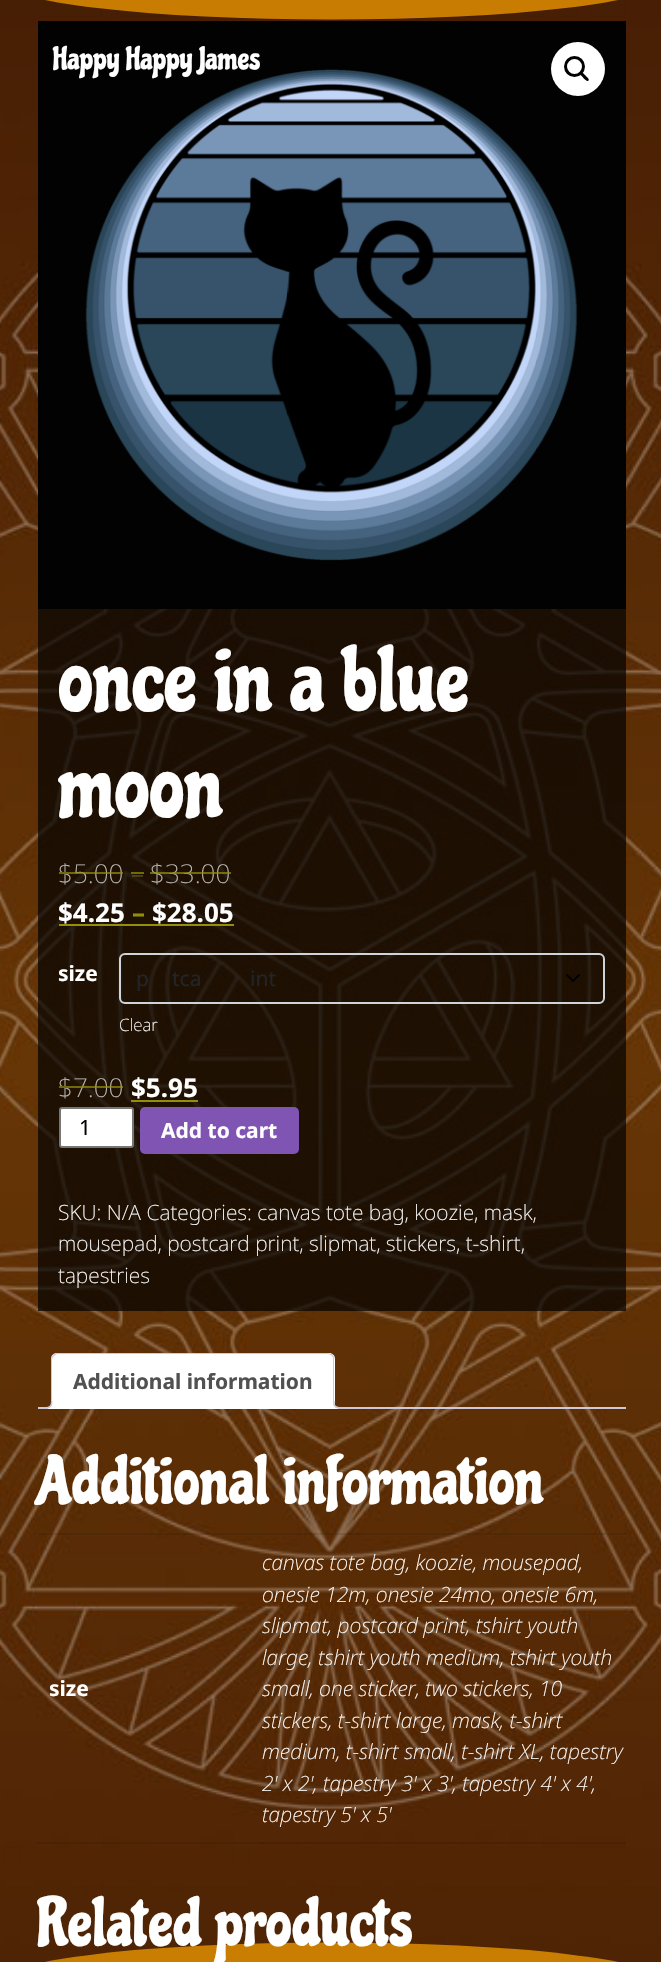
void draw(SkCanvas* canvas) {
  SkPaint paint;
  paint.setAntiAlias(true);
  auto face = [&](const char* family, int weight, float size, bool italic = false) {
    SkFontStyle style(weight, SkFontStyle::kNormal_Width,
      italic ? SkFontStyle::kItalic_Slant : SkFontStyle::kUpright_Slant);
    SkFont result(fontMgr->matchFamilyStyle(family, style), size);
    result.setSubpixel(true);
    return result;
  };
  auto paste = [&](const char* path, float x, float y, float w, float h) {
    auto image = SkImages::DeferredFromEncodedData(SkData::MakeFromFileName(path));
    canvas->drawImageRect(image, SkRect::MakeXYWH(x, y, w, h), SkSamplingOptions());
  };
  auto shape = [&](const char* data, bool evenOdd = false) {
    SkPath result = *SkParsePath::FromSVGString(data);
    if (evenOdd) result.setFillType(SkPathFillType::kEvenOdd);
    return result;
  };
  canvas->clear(0xffffffff);
  paste("img/1.png", 0, 0, 661, 1962);
  paint.setColor(0xffc87d02);
  canvas->drawOval(SkRect::MakeXYWH(0.5f, -58.5f, 662, 78), paint);
  paint.setColor(0xffca7e01);
  canvas->drawOval(SkRect::MakeXYWH(0.5f, 1942.5f, 662, 78), paint);
  paint.setColor(0xb3000000);
  canvas->drawRect(SkRect::MakeXYWH(38, 609, 588, 702), paint);
  paste("img/2.png", 38, 21, 588, 588);
  paint.setColor(0xffffffff);
  canvas->drawCircle(578, 69, 27, paint);
  paint.setStroke(true);
  paint.setStrokeWidth(3);
  paint.setColor(0xff000000);
  canvas->drawCircle(574.5f, 66.5f, 9, paint);
  paint.setStroke(false);
  canvas->drawPath(shape("M580 72.5C581.5 70.5 584.5 74.5 585.5 75.5C586 76.5 590 79 588.5 80.5C587 82.5 584 78.5 583 77.5C582.5 76.5 578.5 74 580 72.5Z"), paint);
  paint.setColor(0xb3958e09);
  canvas->drawRect(SkRect::MakeXYWH(131, 872, 13, 2), paint);
  paint.setColor(0xff958e09);
  canvas->drawRect(SkRect::MakeXYWH(59, 924, 175, 2), paint);
  paint.setStroke(true);
  paint.setStrokeWidth(2);
  paint.setStrokeCap(SkPaint::kRound_Cap);
  paint.setStrokeJoin(SkPaint::kRound_Join);
  paint.setColor(0xff000000);
  canvas->drawPath(shape("M567 975L573 981L579 975"), paint);
  paint.setStrokeCap(SkPaint::kButt_Cap);
  paint.setStrokeJoin(SkPaint::kMiter_Join);
  paint.setColor(0xffced4da);
  canvas->drawRoundRect(SkRect::MakeXYWH(120, 954, 484, 49), 5, 5, paint);
  paint.setStroke(false);
  paint.setColor(0xff958e09);
  canvas->drawRect(SkRect::MakeXYWH(131, 1100, 67, 2), paint);
  paint.setColor(0xffffffff);
  canvas->drawRoundRect(SkRect::MakeXYWH(60, 1108, 73, 39), 2, 2, paint);
  paint.setStroke(true);
  paint.setColor(0xff767676);
  canvas->drawRoundRect(SkRect::MakeXYWH(60, 1108, 73, 39), 2, 2, paint);
  paint.setStroke(false);
  paint.setColor(0xff7f54b3);
  canvas->drawRoundRect(SkRect::MakeXYWH(140, 1107, 159, 47), 5, 5, paint);
  paint.setColor(0xffcfc8d8);
  canvas->drawRect(SkRect::MakeXYWH(38, 1407, 588, 2), paint);
  paint.setColor(0xffffffff);
  canvas->drawPath(shape("M57 1353H329C332.5 1353 335 1355.5 335 1359V1409H51V1359C51 1355.5 53.5 1353 57 1353Z"), paint);
  paint.setColor(0xffcfc8d8);
  canvas->drawPath(shape("M57 1353C56 1353 54 1354 53 1355L54 1356L57 1354H328C329 1354 331 1355 332 1356L333 1355C332 1354 330 1353 328 1353Z"), paint);
  canvas->drawPath(shape("M333 1355C334 1356 334 1358 334 1359V1408L333 1407V1359C333 1358 333 1357 332 1356Z"), paint);
  paint.setColor(0xffffffff);
  canvas->drawPath(shape("M334 1408L333 1407H52V1408Z"), paint);
  paint.setColor(0xffcfc8d8);
  canvas->drawPath(shape("M51 1359V1408H52V1407V1359L54 1356L53 1355C52 1356 51 1358 51 1359Z"), paint);
  canvas->save();
  canvas->clipRect(SkRect::MakeXYWH(38, 1353, 588, 56));
  paint.setColor(0xffffffff);
  canvas->drawPath(shape("M48 1408.5V1412C54 1412 56 1410 56 1404H52.5C52 1406 50 1408 48 1408.5Z"), paint);
  canvas->restore();
  paint.setColor(0xffcfc8d8);
  canvas->drawPath(shape("M45 1401H52.5C52.5 1406.5 50.5 1408.5 45 1408.5ZM45 1401H51C51 1405.5 49.5 1407 45 1407Z", true), paint);
  canvas->save();
  canvas->clipRect(SkRect::MakeXYWH(38, 1353, 588, 56));
  paint.setColor(0xffffffff);
  canvas->drawPath(shape("M330 1404C330 1410 332 1412 338 1412V1408.5C335.5 1408 334 1406.5 333 1404Z"), paint);
  canvas->restore();
  paint.setColor(0xffcfc8d8);
  canvas->drawPath(shape("M333 1401H340.5V1408.5C336.5 1408.5 333 1407 333 1402.5ZM334.5 1401H340.5V1407C337.5 1407 334.5 1406 334.5 1402.5Z", true), paint);
  {
    const struct { float x, y, w, h; SkColor color; } items[] = {
      {38, 1533, 588, 2, 0x1a000000},
      {261, 1842, 365, 2, 0xff4a2104},
      {36, 1842, 227, 2, 0x1a000000},
    };
    for (auto [x, y, w, h, color] : items) {
      paint.setColor(color);
      canvas->drawRect(SkRect::MakeXYWH(x, y, w, h), paint);
    }
  }
  auto f0 = face("Chicle", 400, 31.5f);
  paint.setColor(0xffffffff);
  canvas->drawString("Happy Happy James", 53, 69, f0, paint);
  auto f1 = face("Chicle", 400, 88.5f);
  canvas->drawString("once in a blue", 58, 710, f1, paint);
  canvas->drawString("moon", 58, 816, f1, paint);
  auto f2 = face("Noto Sans", 200, 26);
  paint.setColor(0xffbbb7b3);
  canvas->drawString("$", 58, 883, f2, paint);
  paint.setColor(0xff716807);
  canvas->drawRect(SkRect::MakeXYWH(59, 872, 13, 2), paint);
  paint.setColor(0xffbbb7b3);
  canvas->drawString("5.00", 73, 883, f2, paint);
  paint.setColor(0xb3958e09);
  canvas->drawRect(SkRect::MakeXYWH(72, 872, 51, 2), paint);
  paint.setColor(0xff726908);
  canvas->drawString("–", 131, 883, f2, paint);
  paint.setColor(0xffbbb7b3);
  canvas->drawString("$", 150, 883, f2, paint);
  paint.setColor(0xb3958e09);
  canvas->drawRect(SkRect::MakeXYWH(150, 872, 15, 2), paint);
  paint.setColor(0xffbbb7b3);
  canvas->drawString("33.00", 165, 883, f2, paint);
  paint.setColor(0xb3958e09);
  canvas->drawRect(SkRect::MakeXYWH(165, 872, 66, 2), paint);
  auto f3 = face("Noto Sans", 700, 26);
  paint.setColor(0xffffffff);
  canvas->drawString("$4.25", 58, 922, f3, paint);
  paint.setColor(0xff958e09);
  canvas->drawString("–", 132, 922, f3, paint);
  paint.setColor(0xffffffff);
  canvas->drawString("$28.05", 152, 922, f3, paint);
  auto f4 = face("Noto Sans", 700, 21);
  canvas->drawString("size", 58, 981, f4, paint);
  auto f5 = face("Noto Sans", 400, 21);
  paint.setColor(0xff212529);
  {
    const struct { const char* s; float x, y; } items[] = {
      {"p", 136, 986},
      {"tca", 172, 986},
      {"int", 250, 986},
    };
    for (auto [s, x, y] : items) {
      canvas->drawString(s, x, y, f5, paint);
    }
  }
  auto f6 = face("Noto Sans", 200, 17);
  paint.setColor(0xffffffff);
  canvas->drawString("Clear", 119, 1031, f6, paint);
  paint.setColor(0xffbbb7b3);
  canvas->drawString("$", 58, 1097, f2, paint);
  paint.setColor(0xff716807);
  canvas->drawRect(SkRect::MakeXYWH(59, 1086, 13, 2), paint);
  paint.setColor(0xffbbb7b3);
  canvas->drawString("7.00", 73, 1097, f2, paint);
  paint.setColor(0xb3958e09);
  canvas->drawRect(SkRect::MakeXYWH(72, 1086, 51, 2), paint);
  paint.setColor(0xffffffff);
  canvas->drawString("$5.95", 131, 1097, f3, paint);
  paint.setColor(0xff000000);
  canvas->drawString("1", 79, 1135, f5, paint);
  paint.setColor(0xffffffff);
  canvas->drawString("Add to cart", 161, 1138, f4, paint);
  auto f7 = face("Noto Sans", 200, 21);
  {
    const struct { const char* s; float x, y; } items[] = {
      {"SKU: N/A Categories: canvas tote bag, koozie, mask,", 58, 1220},
      {"mousepad, postcard print, slipmat, stickers, t-shirt,", 58, 1251},
      {"tapestries", 58, 1283},
    };
    for (auto [s, x, y] : items) {
      canvas->drawString(s, x, y, f7, paint);
    }
  }
  paint.setColor(0xff515151);
  canvas->drawString("Additional information", 73, 1389, f4, paint);
  auto f8 = face("Chicle", 400, 66.25f);
  paint.setColor(0xffffffff);
  canvas->drawString("Additional information", 37, 1503, f8, paint);
  canvas->drawString("size", 49, 1696, f4, paint);
  auto f9 = face("Noto Sans", 200, 21, true);
  {
    const struct { const char* s; float x, y; } items[] = {
      {"canvas tote bag, koozie, mousepad,", 262, 1570},
      {"onesie 12m, onesie 24mo, onesie 6m,", 262, 1602},
      {"slipmat, postcard print, tshirt youth", 262, 1633},
      {"large, tshirt youth medium, tshirt youth", 262, 1665},
      {"small, one sticker, two stickers, 10", 262, 1696},
      {"stickers, t-shirt large, mask, t-shirt", 262, 1728},
      {"medium, t-shirt small, t-shirt XL, tapestry", 262, 1759},
      {"2' x 2', tapestry 3' x 3', tapestry 4' x 4',", 262, 1791},
      {"tapestry 5' x 5'", 262, 1822},
    };
    for (auto [s, x, y] : items) {
      canvas->drawString(s, x, y, f9, paint);
    }
  }
  canvas->drawString("Related products", 37, 1945, f8, paint);
}
